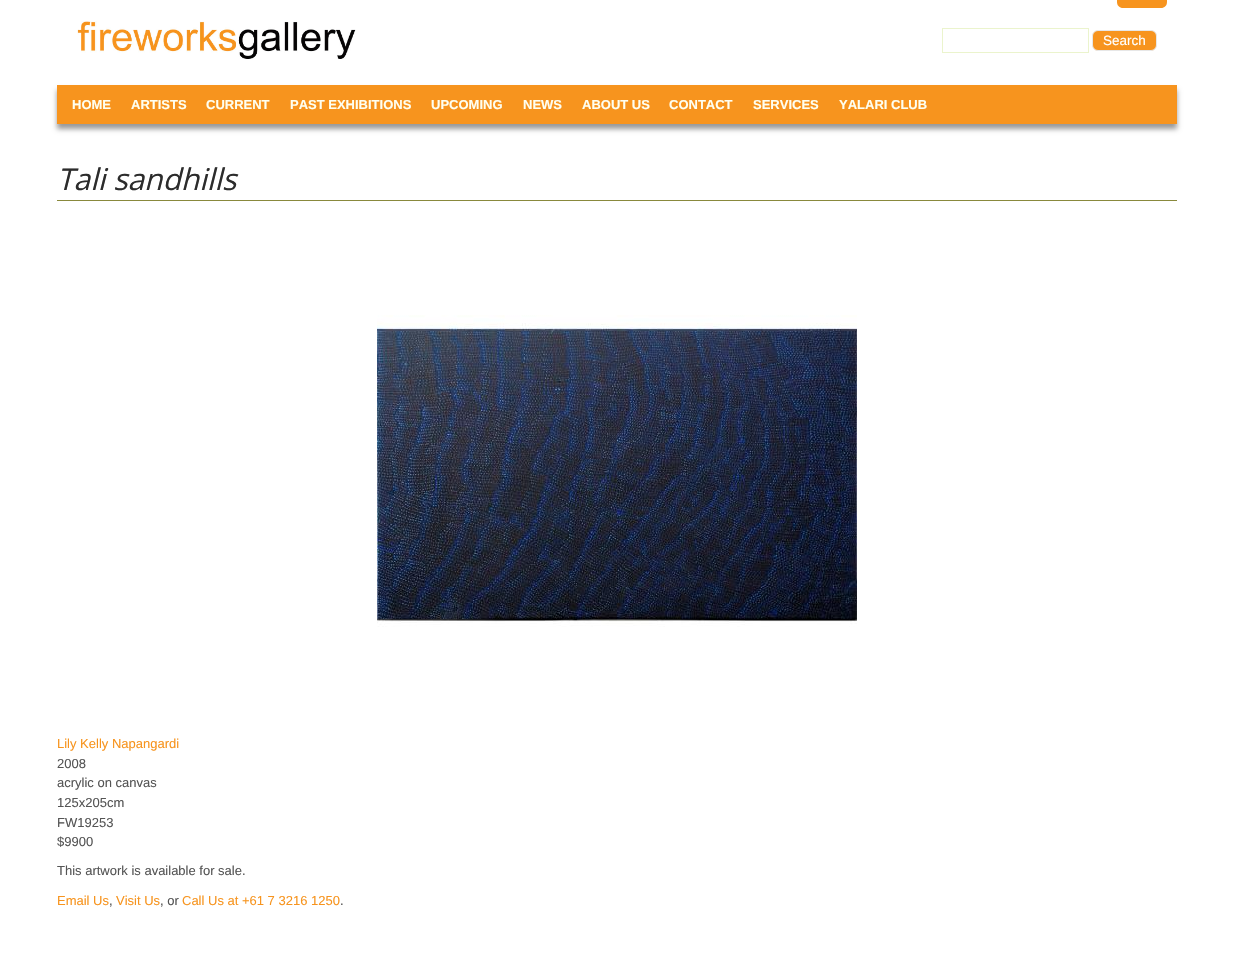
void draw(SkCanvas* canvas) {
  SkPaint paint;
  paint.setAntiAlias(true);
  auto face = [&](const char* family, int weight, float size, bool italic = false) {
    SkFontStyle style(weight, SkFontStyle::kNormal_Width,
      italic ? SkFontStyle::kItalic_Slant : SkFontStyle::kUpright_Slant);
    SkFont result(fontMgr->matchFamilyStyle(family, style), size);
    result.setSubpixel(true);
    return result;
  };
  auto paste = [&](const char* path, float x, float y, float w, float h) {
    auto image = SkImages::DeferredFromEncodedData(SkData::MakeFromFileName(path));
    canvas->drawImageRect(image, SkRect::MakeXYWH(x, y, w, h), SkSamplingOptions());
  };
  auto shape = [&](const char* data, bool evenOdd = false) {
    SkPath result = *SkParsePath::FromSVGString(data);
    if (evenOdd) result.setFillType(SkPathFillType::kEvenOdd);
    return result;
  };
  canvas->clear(0xffffffff);
  paint.setColor(0xfff7941e);
  canvas->drawPath(shape("M1117-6H1167V2C1167 5.5 1164.5 8 1161 8H1123C1119.5 8 1117 5.5 1117 2Z"), paint);
  paste("img/1.png", 77, 21, 279, 38);
  paint.setStroke(true);
  paint.setStrokeWidth(1);
  paint.setColor(0xffebf4cd);
  canvas->drawRect(SkRect::MakeXYWH(942.5f, 28.5f, 146, 24), paint);
  paint.setStroke(false);
  paint.setColor(0xfff7941e);
  canvas->drawRoundRect(SkRect::MakeXYWH(1092.5f, 30.5f, 64, 20), 5.5f, 5.5f, paint);
  paint.setStroke(true);
  paint.setColor(0xffe7e7e7);
  canvas->drawRoundRect(SkRect::MakeXYWH(1092.5f, 30.5f, 64, 20), 5.5f, 5.5f, paint);
  paint.setStroke(false);
  paint.setColor(0x66000000);
  paint.setMaskFilter(SkMaskFilter::MakeBlur(kNormal_SkBlurStyle, 2.5f));
  canvas->drawRect(SkRect::MakeXYWH(57, 90, 1120, 39), paint);
  paint.setMaskFilter(nullptr);
  paint.setColor(0xfff7941e);
  canvas->drawRect(SkRect::MakeXYWH(57, 85, 1120, 39), paint);
  paint.setColor(0xff89893c);
  canvas->drawRect(SkRect::MakeXYWH(57, 200, 1120, 1), paint);
  paste("img/2.png", 377, 315, 480, 312);
  auto f0 = face("Liberation Sans", 400, 13.5f);
  paint.setColor(0xffffffff);
  canvas->drawString("Search", 1103, 45, f0, paint);
  auto f1 = face("Liberation Sans", 700, 13);
  paint.setColor(0xfffffff0);
  {
    const struct { const char* s; float x, y; } items[] = {
      {"HOME", 72, 109},
      {"ARTISTS", 131, 109},
      {"CURRENT", 206, 109},
      {"PAST EXHIBITIONS", 290, 109},
      {"UPCOMING", 431, 109},
      {"NEWS", 523, 109},
      {"ABOUT US", 582, 109},
      {"CONTACT", 669, 109},
      {"SERVICES", 753, 109},
      {"YALARI CLUB", 839, 109},
    };
    for (auto [s, x, y] : items) {
      canvas->drawString(s, x, y, f1, paint);
    }
  }
  auto f2 = face("Open Sans", 400, 30, true);
  paint.setColor(0xff2c2c2c);
  canvas->drawString("Tali sandhills", 57, 190, f2, paint);
  auto f3 = face("Liberation Sans", 400, 13);
  paint.setColor(0xfff7941e);
  canvas->drawString("Lily Kelly Napangardi", 57, 748, f3, paint);
  paint.setColor(0xff555555);
  {
    const struct { const char* s; float x, y; } items[] = {
      {"2008", 57, 768},
      {"acrylic on canvas", 57, 787},
      {"125x205cm", 57, 807},
      {"FW19253", 57, 827},
      {"$9900", 57, 846},
      {"This artwork is available for sale.", 57, 875},
    };
    for (auto [s, x, y] : items) {
      canvas->drawString(s, x, y, f3, paint);
    }
  }
  paint.setColor(0xfff7941e);
  canvas->drawString("Email Us", 57, 905, f3, paint);
  paint.setColor(0xff555555);
  canvas->drawString(",", 109, 905, f3, paint);
  paint.setColor(0xfff7941e);
  canvas->drawString("Visit Us", 116, 905, f3, paint);
  paint.setColor(0xff555555);
  canvas->drawString(", or", 160, 905, f3, paint);
  paint.setColor(0xfff7941e);
  canvas->drawString("Call Us at +61 7 3216 1250", 182, 905, f3, paint);
  paint.setColor(0xff555555);
  canvas->drawString(".", 340, 905, f3, paint);
}
